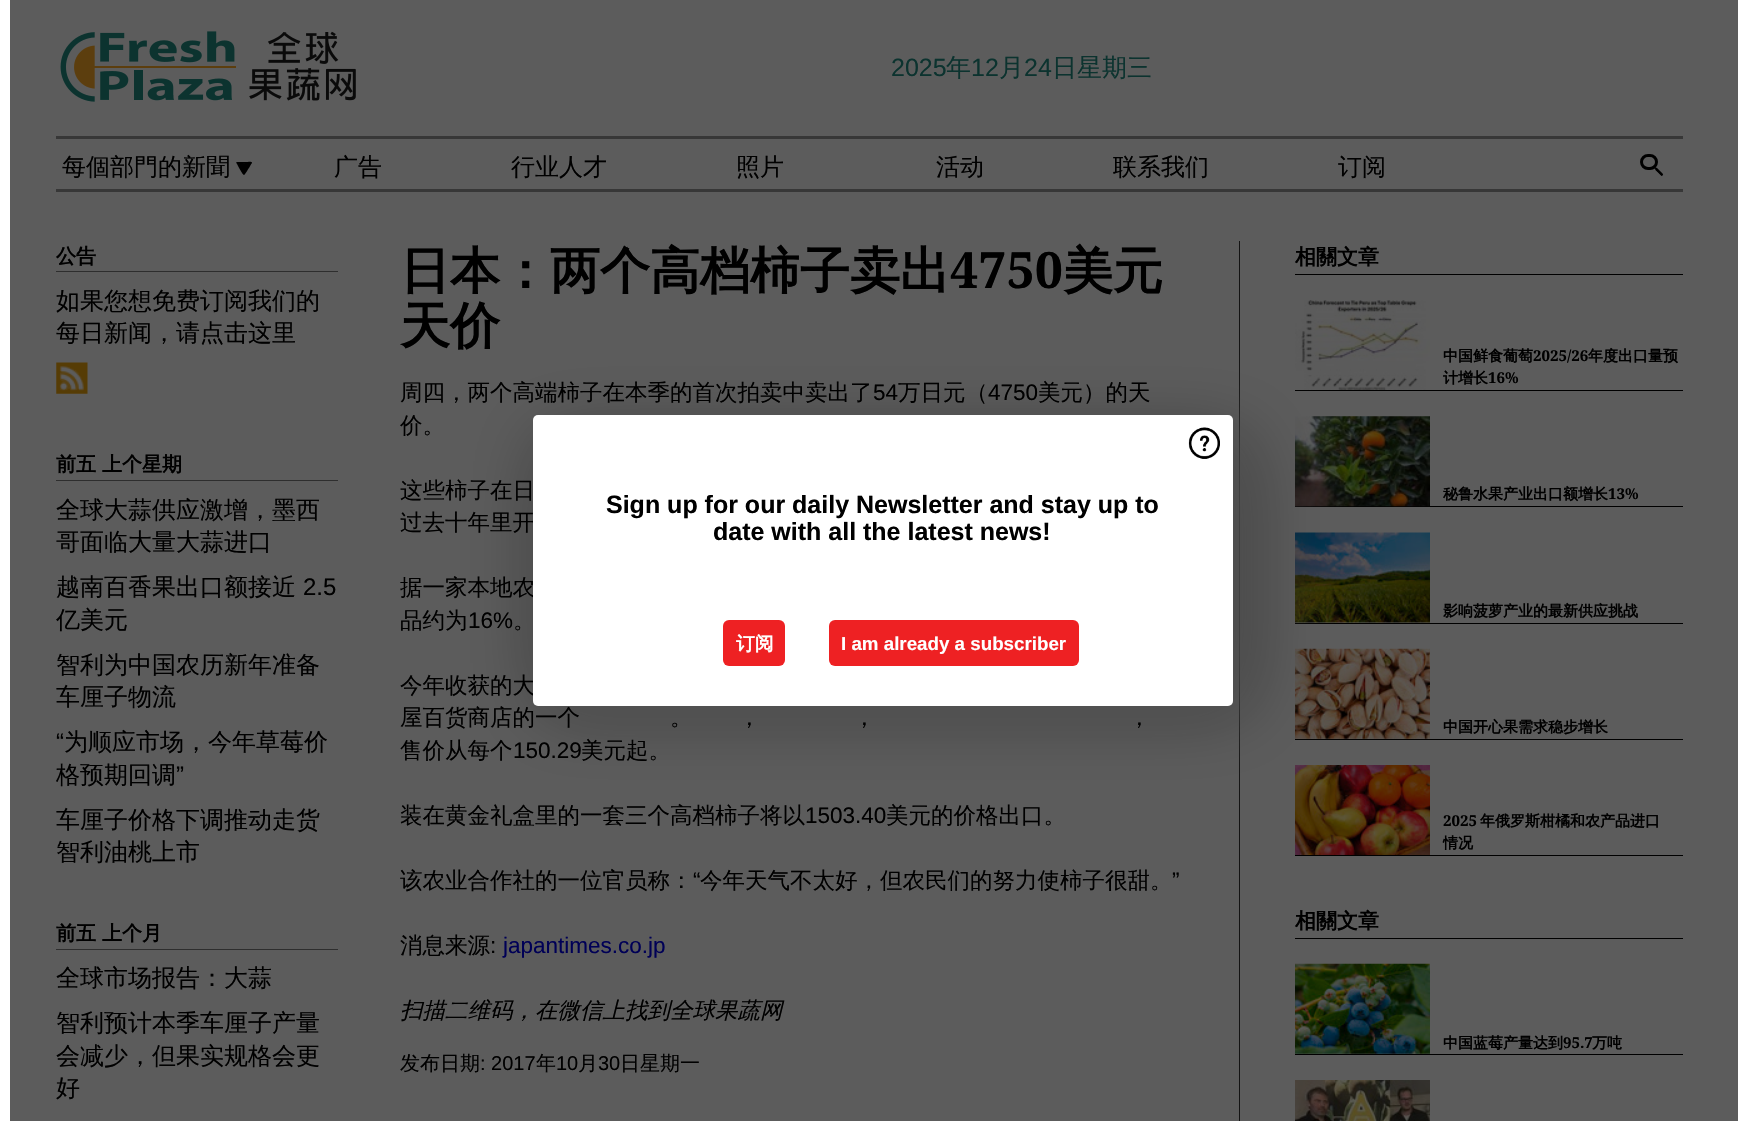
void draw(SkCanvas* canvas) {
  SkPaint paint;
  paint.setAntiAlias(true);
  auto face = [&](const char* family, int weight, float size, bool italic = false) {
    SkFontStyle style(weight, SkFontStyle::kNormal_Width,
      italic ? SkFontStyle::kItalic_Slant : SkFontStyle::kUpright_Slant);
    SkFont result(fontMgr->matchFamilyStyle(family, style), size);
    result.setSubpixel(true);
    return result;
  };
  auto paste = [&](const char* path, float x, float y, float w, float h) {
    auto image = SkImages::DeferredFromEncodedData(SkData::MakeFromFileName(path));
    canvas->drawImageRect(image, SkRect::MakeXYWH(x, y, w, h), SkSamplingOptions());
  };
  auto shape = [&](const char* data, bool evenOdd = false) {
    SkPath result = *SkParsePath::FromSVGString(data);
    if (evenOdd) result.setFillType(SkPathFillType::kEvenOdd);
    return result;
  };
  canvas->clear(0xffffffff);
  paint.setColor(0xff5c5c5c);
  canvas->drawRect(SkRect::MakeXYWH(10, 0, 1728, 1121), paint);
  paste("img/1.png", 60, 31, 296, 71);
  paint.setColor(0xff373737);
  canvas->drawRect(SkRect::MakeXYWH(56, 136, 1627, 3), paint);
  canvas->drawRect(SkRect::MakeXYWH(56, 189, 1627, 3), paint);
  paint.setColor(0xff000000);
  canvas->drawPath(shape("M251 163.5H237L236.5 163C235.5 161.5 239.5 162 239.5 162H246.5C247 162 251.5 161 252 162.5C252 163 251.5 163.5 251 163.5Z"), paint);
  canvas->drawPath(shape("M251.5 163.5L252 162.5H244.5L244 163.5V175C245 175 248 169 249 168ZM236.5 163L236 162.5H243.5L244 163.5V175C243 175.5 237.5 165 236.5 163Z"), paint);
  paint.setStroke(true);
  paint.setStrokeWidth(3);
  canvas->drawRoundRect(SkRect::MakeXYWH(1641.5f, 155.5f, 15, 13), 6.5f, 6.5f, paint);
  paint.setStroke(false);
  canvas->drawPath(shape("M1653.5 165.5L1652.5 166.5L1655 169L1656 168Z"), paint);
  canvas->drawPath(shape("M1657 168L1662 173C1663.5 174.5 1663.5 174.5 1662 176H1661.5L1656 170.5C1653.5 168 1656.5 167.5 1657 168Z"), paint);
  canvas->drawPath(shape("M1659.5 171L1662.5 174L1661 175L1658.5 172.5Z"), paint);
  canvas->drawPath(shape("M1657 168.5L1659.5 171L1658.5 172.5L1655.5 170Z"), paint);
  paint.setColor(0xff2e2e2e);
  canvas->drawRect(SkRect::MakeXYWH(56, 271, 282, 1), paint);
  paste("img/2.png", 56, 362, 32, 32);
  {
    const struct { float x, y, w, h; SkColor color; } items[] = {
      {56, 480, 282, 1, 0xff2e2e2e},
      {56, 949, 282, 1, 0xff2e2e2e},
      {1239, 241, 1, 880, 0xff131313},
      {1295, 274, 388, 1, 0xff000000},
      {1295, 390, 388, 1, 0xff000000},
    };
    for (auto [x, y, w, h, color] : items) {
      paint.setColor(color);
      canvas->drawRect(SkRect::MakeXYWH(x, y, w, h), paint);
    }
  }
  paste("img/3.png", 1295, 300, 135, 90);
  canvas->drawRect(SkRect::MakeXYWH(1295, 506, 388, 1), paint);
  paste("img/4.png", 1295, 416, 135, 91);
  canvas->drawRect(SkRect::MakeXYWH(1295, 623, 388, 1), paint);
  paste("img/5.png", 1295, 532, 135, 91);
  canvas->drawRect(SkRect::MakeXYWH(1295, 739, 388, 1), paint);
  paste("img/6.png", 1295, 648, 135, 91);
  canvas->drawRect(SkRect::MakeXYWH(1295, 855, 388, 1), paint);
  paste("img/7.png", 1295, 765, 135, 90);
  canvas->drawRect(SkRect::MakeXYWH(1295, 938, 388, 1), paint);
  canvas->drawRect(SkRect::MakeXYWH(1295, 1054, 388, 1), paint);
  paste("img/8.png", 1295, 963, 135, 91);
  paste("img/9.png", 1295, 1080, 135, 41);
  paint.setColor(0xff333333);
  paint.setMaskFilter(SkMaskFilter::MakeBlur(kNormal_SkBlurStyle, 37.5f));
  canvas->drawRoundRect(SkRect::MakeXYWH(545, 441, 700, 264), 5, 5, paint);
  paint.setMaskFilter(nullptr);
  paint.setColor(0xff555555);
  paint.setMaskFilter(SkMaskFilter::MakeBlur(kNormal_SkBlurStyle, 37.5f));
  canvas->drawRoundRect(SkRect::MakeXYWH(545, 428, 700, 291), 5, 5, paint);
  paint.setMaskFilter(nullptr);
  auto f0 = face("Liberation Sans", 400, 25);
  paint.setColor(0xff0c332f);
  canvas->drawString("2025", 891, 76, f0, paint);
  auto f1 = face("WenQuanYi Zen Hei", 500, 25);
  canvas->drawString("年", 946, 76, f1, paint);
  canvas->drawString("12", 971, 76, f0, paint);
  canvas->drawString("月", 999, 76, f1, paint);
  canvas->drawString("24", 1024, 76, f0, paint);
  canvas->drawString("日星期三", 1052, 76, f1, paint);
  auto f2 = face("WenQuanYi Zen Hei", 500, 24);
  paint.setColor(0xff000000);
  {
    const struct { const char* s; float x, y; } items[] = {
      {"每個部門的新聞", 62, 175},
      {"广告", 334, 175},
      {"行业人才", 511, 175},
      {"照片", 736, 175},
      {"活动", 936, 175},
      {"联系我们", 1113, 175},
      {"订阅", 1338, 175},
    };
    for (auto [s, x, y] : items) {
      canvas->drawString(s, x, y, f2, paint);
    }
  }
  auto f3 = face("WenQuanYi Zen Hei", 700, 20);
  canvas->drawString("公告", 56, 263, f3, paint);
  canvas->drawString("如果您想免费订阅我们的", 56, 309, f2, paint);
  canvas->drawString("每日新闻，请点击这里", 56, 341, f2, paint);
  canvas->drawString("前五", 56, 471, f3, paint);
  canvas->drawString("上个星期", 102, 471, f3, paint);
  {
    const struct { const char* s; float x, y; } items[] = {
      {"全球大蒜供应激增，墨西", 56, 518},
      {"哥面临大量大蒜进口", 56, 550},
      {"越南百香果出口额接近", 56, 595},
    };
    for (auto [s, x, y] : items) {
      canvas->drawString(s, x, y, f2, paint);
    }
  }
  auto f4 = face("Liberation Sans", 400, 24);
  canvas->drawString("2.5", 303, 595, f4, paint);
  {
    const struct { const char* s; float x, y; } items[] = {
      {"亿美元", 56, 628},
      {"智利为中国农历新年准备", 56, 673},
      {"车厘子物流", 56, 705},
    };
    for (auto [s, x, y] : items) {
      canvas->drawString(s, x, y, f2, paint);
    }
  }
  canvas->drawString("“", 56, 750, f4, paint);
  canvas->drawString("为顺应市场，今年草莓价", 64, 750, f2, paint);
  canvas->drawString("格预期回调", 56, 783, f2, paint);
  canvas->drawString("”", 176, 783, f4, paint);
  canvas->drawString("车厘子价格下调推动走货", 56, 828, f2, paint);
  canvas->drawString("智利油桃上市", 56, 860, f2, paint);
  canvas->drawString("前五", 56, 940, f3, paint);
  canvas->drawString("上个月", 102, 940, f3, paint);
  {
    const struct { const char* s; float x, y; } items[] = {
      {"全球市场报告：大蒜", 56, 986},
      {"智利预计本季车厘子产量", 56, 1031},
      {"会减少，但果实规格会更", 56, 1064},
      {"好", 56, 1096},
    };
    for (auto [s, x, y] : items) {
      canvas->drawString(s, x, y, f2, paint);
    }
  }
  auto f5 = face("WenQuanYi Zen Hei", 700, 50);
  canvas->drawString("日本：两个高档柿子卖出", 400, 288, f5, paint);
  auto f6 = face("Noto Serif", 700, 50);
  canvas->drawString("4750", 950, 288, f6, paint);
  canvas->drawString("美元", 1063, 288, f5, paint);
  canvas->drawString("天价", 400, 343, f5, paint);
  auto f7 = face("WenQuanYi Zen Hei", 500, 22.5f);
  canvas->drawString("周四，两个高端柿子在本季的首次拍卖中卖出了", 400, 400, f7, paint);
  auto f8 = face("Liberation Sans", 400, 22.5f);
  canvas->drawString("54", 873, 400, f8, paint);
  canvas->drawString("万日元（", 898, 400, f7, paint);
  canvas->drawString("4750", 988, 400, f8, paint);
  {
    const struct { const char* s; float x, y; } items[] = {
      {"美元）的天", 1038, 400},
      {"价。", 400, 433},
      {"这些柿子在日", 400, 498},
      {"过去十年里开", 400, 530},
      {"据一家本地农", 400, 595},
      {"品约为", 400, 628},
    };
    for (auto [s, x, y] : items) {
      canvas->drawString(s, x, y, f7, paint);
    }
  }
  canvas->drawString("16%", 468, 628, f8, paint);
  {
    const struct { const char* s; float x, y; } items[] = {
      {"。", 513, 628},
      {"今年收获的大", 400, 693},
      {"屋百货商店的一个", 400, 725},
      {"。", 670, 725},
      {"，", 738, 725},
      {"，", 853, 725},
      {"，", 1128, 725},
      {"售价从每个", 400, 758},
    };
    for (auto [s, x, y] : items) {
      canvas->drawString(s, x, y, f7, paint);
    }
  }
  canvas->drawString("150.29", 513, 758, f8, paint);
  canvas->drawString("美元起。", 581, 758, f7, paint);
  canvas->drawString("装在黄金礼盒里的一套三个高档柿子将以", 400, 823, f7, paint);
  canvas->drawString("1503.40", 805, 823, f8, paint);
  canvas->drawString("美元的价格出口。", 886, 823, f7, paint);
  canvas->drawString("该农业合作社的一位官员称：", 400, 888, f7, paint);
  canvas->drawString("“", 693, 888, f8, paint);
  canvas->drawString("今年天气不太好，但农民们的努力使柿子很甜。", 700, 888, f7, paint);
  canvas->drawString("”", 1172, 888, f8, paint);
  canvas->drawString("消息来源", 400, 953, f7, paint);
  canvas->drawString(":", 490, 953, f8, paint);
  paint.setColor(0xff000056);
  canvas->drawString("japantimes.co.jp", 503, 953, f8, paint);
  auto f9 = face("WenQuanYi Zen Hei", 500, 22.5f, true);
  paint.setColor(0xff000000);
  canvas->drawString("扫描二维码，在微信上找到全球果蔬网", 400, 1018, f9, paint);
  auto f10 = face("WenQuanYi Zen Hei", 500, 20);
  canvas->drawString("发布日期", 400, 1070, f10, paint);
  auto f11 = face("Liberation Sans", 400, 20);
  canvas->drawString(": 2017", 480, 1070, f11, paint);
  canvas->drawString("年", 536, 1070, f10, paint);
  canvas->drawString("10", 556, 1070, f11, paint);
  canvas->drawString("月", 578, 1070, f10, paint);
  canvas->drawString("30", 598, 1070, f11, paint);
  canvas->drawString("日星期一", 620, 1070, f10, paint);
  auto f12 = face("WenQuanYi Zen Hei", 700, 21);
  canvas->drawString("相關文章", 1295, 264, f12, paint);
  auto f13 = face("WenQuanYi Zen Hei", 700, 15);
  canvas->drawString("中国鲜食葡萄", 1443, 361, f13, paint);
  auto f14 = face("Noto Serif", 700, 15);
  canvas->drawString("2025/26", 1533, 361, f14, paint);
  canvas->drawString("年度出口量预", 1588, 361, f13, paint);
  canvas->drawString("计增长", 1443, 383, f13, paint);
  canvas->drawString("16%", 1488, 383, f14, paint);
  canvas->drawString("秘鲁水果产业出口额增长", 1443, 499, f13, paint);
  canvas->drawString("13%", 1608, 499, f14, paint);
  canvas->drawString("影响菠萝产业的最新供应挑战", 1443, 616, f13, paint);
  canvas->drawString("中国开心果需求稳步增长", 1443, 732, f13, paint);
  canvas->drawString("2025", 1443, 826, f14, paint);
  canvas->drawString("年俄罗斯柑橘和农产品进口", 1480, 826, f13, paint);
  canvas->drawString("情况", 1443, 848, f13, paint);
  canvas->drawString("相關文章", 1295, 928, f12, paint);
  canvas->drawString("中国蓝莓产量达到", 1443, 1048, f13, paint);
  canvas->drawString("95.7", 1563, 1048, f14, paint);
  canvas->drawString("万吨", 1592, 1048, f13, paint);
  paint.setColor(0xffffffff);
  canvas->drawRoundRect(SkRect::MakeXYWH(533, 415, 700, 291), 5, 5, paint);
  paste("img/10.png", 1188, 427, 32, 32);
  auto f15 = face("Liberation Sans", 700, 25);
  paint.setColor(0xff000000);
  canvas->drawString("Sign up for our daily Newsletter and stay up to", 606, 513, f15, paint);
  canvas->drawString("date with all the latest news!", 713, 540, f15, paint);
  paint.setColor(0xffee2123);
  canvas->drawRoundRect(SkRect::MakeXYWH(723, 620, 62, 46), 6, 6, paint);
  auto f16 = face("WenQuanYi Zen Hei", 700, 18.75f);
  paint.setColor(0xffffffff);
  canvas->drawString("订阅", 736, 650, f16, paint);
  paint.setColor(0xffee2123);
  canvas->drawRoundRect(SkRect::MakeXYWH(829, 620, 250, 46), 6, 6, paint);
  auto f17 = face("Liberation Sans", 700, 18.75f);
  paint.setColor(0xffffffff);
  canvas->drawString("I am already a subscriber", 841, 650, f17, paint);
}
